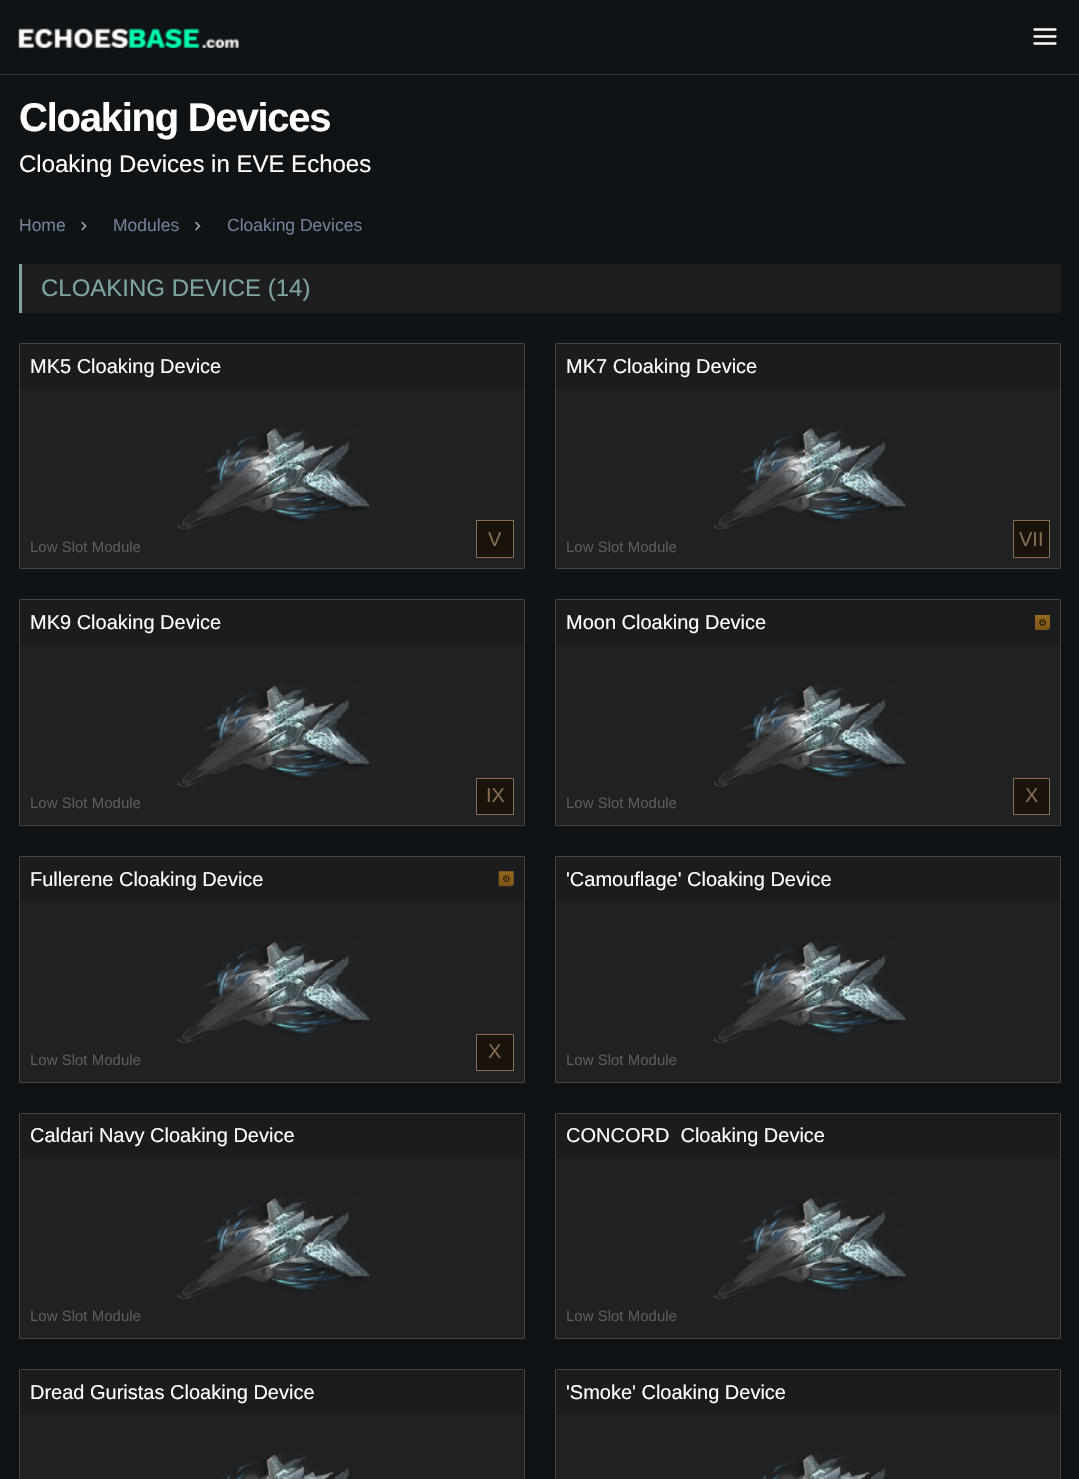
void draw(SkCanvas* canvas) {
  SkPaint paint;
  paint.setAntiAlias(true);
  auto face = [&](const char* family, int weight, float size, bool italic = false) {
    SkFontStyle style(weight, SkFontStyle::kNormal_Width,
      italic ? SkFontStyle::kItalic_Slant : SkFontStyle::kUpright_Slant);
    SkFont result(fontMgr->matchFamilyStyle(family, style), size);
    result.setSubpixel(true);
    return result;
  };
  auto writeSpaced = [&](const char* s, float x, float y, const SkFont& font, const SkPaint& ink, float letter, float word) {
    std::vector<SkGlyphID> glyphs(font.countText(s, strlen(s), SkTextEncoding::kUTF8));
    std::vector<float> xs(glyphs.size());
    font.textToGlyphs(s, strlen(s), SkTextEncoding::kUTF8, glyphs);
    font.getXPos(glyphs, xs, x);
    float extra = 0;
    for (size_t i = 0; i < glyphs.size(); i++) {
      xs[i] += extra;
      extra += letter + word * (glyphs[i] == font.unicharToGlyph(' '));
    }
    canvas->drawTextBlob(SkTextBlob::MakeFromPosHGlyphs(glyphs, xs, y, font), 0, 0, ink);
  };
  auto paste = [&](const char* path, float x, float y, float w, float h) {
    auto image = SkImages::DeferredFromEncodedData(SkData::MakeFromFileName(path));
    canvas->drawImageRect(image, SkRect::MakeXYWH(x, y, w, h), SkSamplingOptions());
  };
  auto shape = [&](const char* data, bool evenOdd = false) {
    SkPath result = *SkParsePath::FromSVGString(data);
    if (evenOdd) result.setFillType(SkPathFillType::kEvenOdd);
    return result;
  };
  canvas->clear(0xff0f1316);
  paint.setColor(0xff353535);
  canvas->drawRect(SkRect::MakeXYWH(0, 74, 1079, 1), paint);
  paste("img/1.png", 18, 28, 221, 21);
  paint.setStroke(true);
  paint.setStrokeWidth(2.3f);
  paint.setStrokeCap(SkPaint::kRound_Cap);
  paint.setStrokeJoin(SkPaint::kRound_Join);
  paint.setColor(0xffffffff);
  canvas->drawPath(shape("M1034.5 36.5H1055.5M1034.5 29.5H1055.5M1034.5 43.5H1055.5"), paint);
  paste("img/2.png", 81, 221, 6, 10);
  paste("img/3.png", 195, 221, 6, 10);
  paint.setStroke(false);
  paint.setColor(0xff1d1e20);
  canvas->drawRect(SkRect::MakeXYWH(22, 264, 1039, 49), paint);
  paint.setColor(0xff7ea4a2);
  canvas->drawRect(SkRect::MakeXYWH(19, 264, 3, 49), paint);
  paint.setColor(0xff202123);
  canvas->drawRoundRect(SkRect::MakeXYWH(19.5f, 343.5f, 505, 225), 0.5f, 0.5f, paint);
  paint.setStroke(true);
  paint.setStrokeWidth(1);
  paint.setStrokeCap(SkPaint::kButt_Cap);
  paint.setStrokeJoin(SkPaint::kMiter_Join);
  paint.setColor(0xff444444);
  canvas->drawRoundRect(SkRect::MakeXYWH(19.5f, 343.5f, 505, 225), 0.5f, 0.5f, paint);
  paint.setStroke(false);
  paint.setColor(0xff1b1c1e);
  canvas->drawRect(SkRect::MakeXYWH(20, 344, 504, 44), paint);
  paste("img/4.png", 177, 427, 193, 103);
  paint.setColor(0xff1a130b);
  canvas->drawRect(SkRect::MakeXYWH(476.5f, 520.5f, 37, 37), paint);
  paint.setStroke(true);
  paint.setColor(0xff856d51);
  canvas->drawRect(SkRect::MakeXYWH(476.5f, 520.5f, 37, 37), paint);
  paint.setStroke(false);
  paint.setColor(0xff202123);
  canvas->drawRoundRect(SkRect::MakeXYWH(555.5f, 343.5f, 505, 225), 0.5f, 0.5f, paint);
  paint.setStroke(true);
  paint.setColor(0xff444444);
  canvas->drawRoundRect(SkRect::MakeXYWH(555.5f, 343.5f, 505, 225), 0.5f, 0.5f, paint);
  paint.setStroke(false);
  paint.setColor(0xff1b1c1e);
  canvas->drawRect(SkRect::MakeXYWH(556, 344, 504, 44), paint);
  paste("img/5.png", 713, 427, 193, 103);
  paint.setColor(0xff1a130b);
  canvas->drawRect(SkRect::MakeXYWH(1013.5f, 520.5f, 36, 37), paint);
  paint.setStroke(true);
  paint.setColor(0xff856d51);
  canvas->drawRect(SkRect::MakeXYWH(1013.5f, 520.5f, 36, 37), paint);
  paint.setStroke(false);
  paint.setColor(0xff202123);
  canvas->drawRoundRect(SkRect::MakeXYWH(19.5f, 599.5f, 505, 226), 0.5f, 0.5f, paint);
  paint.setStroke(true);
  paint.setColor(0xff444444);
  canvas->drawRoundRect(SkRect::MakeXYWH(19.5f, 599.5f, 505, 226), 0.5f, 0.5f, paint);
  paint.setStroke(false);
  paint.setColor(0xff1b1c1e);
  canvas->drawRect(SkRect::MakeXYWH(20, 600, 504, 45), paint);
  paste("img/6.png", 177, 684, 193, 103);
  paint.setColor(0xff1a130b);
  canvas->drawRect(SkRect::MakeXYWH(476.5f, 778.5f, 37, 36), paint);
  paint.setStroke(true);
  paint.setColor(0xff856d51);
  canvas->drawRect(SkRect::MakeXYWH(476.5f, 778.5f, 37, 36), paint);
  paint.setStroke(false);
  paint.setColor(0xff202123);
  canvas->drawRoundRect(SkRect::MakeXYWH(555.5f, 599.5f, 505, 226), 0.5f, 0.5f, paint);
  paint.setStroke(true);
  paint.setColor(0xff444444);
  canvas->drawRoundRect(SkRect::MakeXYWH(555.5f, 599.5f, 505, 226), 0.5f, 0.5f, paint);
  paint.setStroke(false);
  paint.setColor(0xff1b1c1e);
  canvas->drawRect(SkRect::MakeXYWH(556, 600, 504, 45), paint);
  paste("img/7.png", 1035, 615, 15, 15);
  paste("img/8.png", 713, 684, 193, 103);
  paint.setColor(0xff1a130b);
  canvas->drawRect(SkRect::MakeXYWH(1013.5f, 778.5f, 36, 36), paint);
  paint.setStroke(true);
  paint.setColor(0xff856d51);
  canvas->drawRect(SkRect::MakeXYWH(1013.5f, 778.5f, 36, 36), paint);
  paint.setStroke(false);
  paint.setColor(0xff202123);
  canvas->drawRoundRect(SkRect::MakeXYWH(19.5f, 856.5f, 505, 226), 0.5f, 0.5f, paint);
  paint.setStroke(true);
  paint.setColor(0xff444444);
  canvas->drawRoundRect(SkRect::MakeXYWH(19.5f, 856.5f, 505, 226), 0.5f, 0.5f, paint);
  paint.setStroke(false);
  paint.setColor(0xff1b1c1e);
  canvas->drawRect(SkRect::MakeXYWH(20, 858, 504, 43), paint);
  paste("img/9.png", 498, 871, 16, 16);
  paste("img/10.png", 177, 941, 193, 102);
  paint.setColor(0xff1a130b);
  canvas->drawRect(SkRect::MakeXYWH(476.5f, 1034.5f, 37, 36), paint);
  paint.setStroke(true);
  paint.setColor(0xff856d51);
  canvas->drawRect(SkRect::MakeXYWH(476.5f, 1034.5f, 37, 36), paint);
  paint.setStroke(false);
  paint.setColor(0xff202123);
  canvas->drawRoundRect(SkRect::MakeXYWH(555.5f, 856.5f, 505, 226), 0.5f, 0.5f, paint);
  paint.setStroke(true);
  paint.setColor(0xff444444);
  canvas->drawRoundRect(SkRect::MakeXYWH(555.5f, 856.5f, 505, 226), 0.5f, 0.5f, paint);
  paint.setStroke(false);
  paint.setColor(0xff1b1c1e);
  canvas->drawRect(SkRect::MakeXYWH(556, 858, 504, 43), paint);
  paste("img/11.png", 713, 941, 193, 102);
  paint.setColor(0xff202123);
  canvas->drawRoundRect(SkRect::MakeXYWH(19.5f, 1113.5f, 505, 225), 0.5f, 0.5f, paint);
  paint.setStroke(true);
  paint.setColor(0xff444444);
  canvas->drawRoundRect(SkRect::MakeXYWH(19.5f, 1113.5f, 505, 225), 0.5f, 0.5f, paint);
  paint.setStroke(false);
  paint.setColor(0xff1b1c1e);
  canvas->drawRect(SkRect::MakeXYWH(20, 1114, 504, 44), paint);
  paste("img/12.png", 177, 1197, 193, 103);
  paint.setColor(0xff202123);
  canvas->drawRoundRect(SkRect::MakeXYWH(555.5f, 1113.5f, 505, 225), 0.5f, 0.5f, paint);
  paint.setStroke(true);
  paint.setColor(0xff444444);
  canvas->drawRoundRect(SkRect::MakeXYWH(555.5f, 1113.5f, 505, 225), 0.5f, 0.5f, paint);
  paint.setStroke(false);
  paint.setColor(0xff1b1c1e);
  canvas->drawRect(SkRect::MakeXYWH(556, 1114, 504, 44), paint);
  paste("img/13.png", 713, 1197, 193, 103);
  paint.setColor(0xff202123);
  canvas->drawRoundRect(SkRect::MakeXYWH(19.5f, 1369.5f, 505, 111), 0.5f, 0.5f, paint);
  paint.setStroke(true);
  paint.setColor(0xff444444);
  canvas->drawRoundRect(SkRect::MakeXYWH(19.5f, 1369.5f, 505, 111), 0.5f, 0.5f, paint);
  paint.setStroke(false);
  paint.setColor(0xff1b1c1e);
  canvas->drawRect(SkRect::MakeXYWH(20, 1370, 504, 44), paint);
  paste("img/14.png", 222, 1453, 128, 26);
  paint.setColor(0xff202123);
  canvas->drawRoundRect(SkRect::MakeXYWH(555.5f, 1369.5f, 505, 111), 0.5f, 0.5f, paint);
  paint.setStroke(true);
  paint.setColor(0xff444444);
  canvas->drawRoundRect(SkRect::MakeXYWH(555.5f, 1369.5f, 505, 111), 0.5f, 0.5f, paint);
  paint.setStroke(false);
  paint.setColor(0xff1b1c1e);
  canvas->drawRect(SkRect::MakeXYWH(556, 1370, 504, 44), paint);
  paste("img/15.png", 759, 1453, 127, 26);
  auto f0 = face("Liberation Sans", 700, 40);
  paint.setColor(0xffffffff);
  writeSpaced("Cloaking Devices", 19, 131, f0, paint, -1.25f, 0);
  auto f1 = face("Liberation Sans", 400, 24);
  canvas->drawString("Cloaking Devices in EVE Echoes", 19, 172, f1, paint);
  auto f2 = face("Liberation Sans", 400, 17.5f);
  paint.setColor(0xff718096);
  {
    const struct { const char* s; float x, y; } items[] = {
      {"Home", 19, 231},
      {"Modules", 113, 231},
      {"Cloaking Devices", 227, 231},
    };
    for (auto [s, x, y] : items) {
      canvas->drawString(s, x, y, f2, paint);
    }
  }
  paint.setColor(0xff7ea4a2);
  canvas->drawString("CLOAKING DEVICE (14)", 41, 296, f1, paint);
  auto f3 = face("Liberation Sans", 400, 20);
  paint.setColor(0xffffffff);
  canvas->drawString("MK5 Cloaking Device", 30, 373, f3, paint);
  auto f4 = face("Liberation Sans", 400, 15);
  paint.setColor(0xff58595a);
  canvas->drawString("Low Slot Module", 30, 552, f4, paint);
  paint.setColor(0xff856d51);
  canvas->drawString("V", 488, 546, f3, paint);
  paint.setColor(0xffffffff);
  canvas->drawString("MK7 Cloaking Device", 566, 373, f3, paint);
  paint.setColor(0xff58595a);
  canvas->drawString("Low Slot Module", 566, 552, f4, paint);
  paint.setColor(0xff856d51);
  canvas->drawString("VII", 1019, 546, f3, paint);
  paint.setColor(0xffffffff);
  canvas->drawString("MK9 Cloaking Device", 30, 629, f3, paint);
  paint.setColor(0xff58595a);
  canvas->drawString("Low Slot Module", 30, 808, f4, paint);
  paint.setColor(0xff856d51);
  canvas->drawString("IX", 486, 802, f3, paint);
  paint.setColor(0xffffffff);
  canvas->drawString("Moon Cloaking Device", 566, 629, f3, paint);
  paint.setColor(0xff58595a);
  canvas->drawString("Low Slot Module", 566, 808, f4, paint);
  paint.setColor(0xff856d51);
  canvas->drawString("X", 1025, 802, f3, paint);
  paint.setColor(0xffffffff);
  canvas->drawString("Fullerene Cloaking Device", 30, 886, f3, paint);
  paint.setColor(0xff856d51);
  canvas->drawString("X", 488, 1058, f3, paint);
  paint.setColor(0xff58595a);
  canvas->drawString("Low Slot Module", 30, 1065, f4, paint);
  paint.setColor(0xffffffff);
  canvas->drawString("'Camouflage' Cloaking Device", 566, 886, f3, paint);
  paint.setColor(0xff58595a);
  canvas->drawString("Low Slot Module", 566, 1065, f4, paint);
  paint.setColor(0xffffffff);
  canvas->drawString("Caldari Navy Cloaking Device", 30, 1142, f3, paint);
  paint.setColor(0xff58595a);
  canvas->drawString("Low Slot Module", 30, 1321, f4, paint);
  paint.setColor(0xffffffff);
  canvas->drawString("CONCORD  Cloaking Device", 566, 1142, f3, paint);
  paint.setColor(0xff58595a);
  canvas->drawString("Low Slot Module", 566, 1321, f4, paint);
  paint.setColor(0xffffffff);
  canvas->drawString("Dread Guristas Cloaking Device", 30, 1399, f3, paint);
  canvas->drawString("'Smoke' Cloaking Device", 566, 1399, f3, paint);
}
